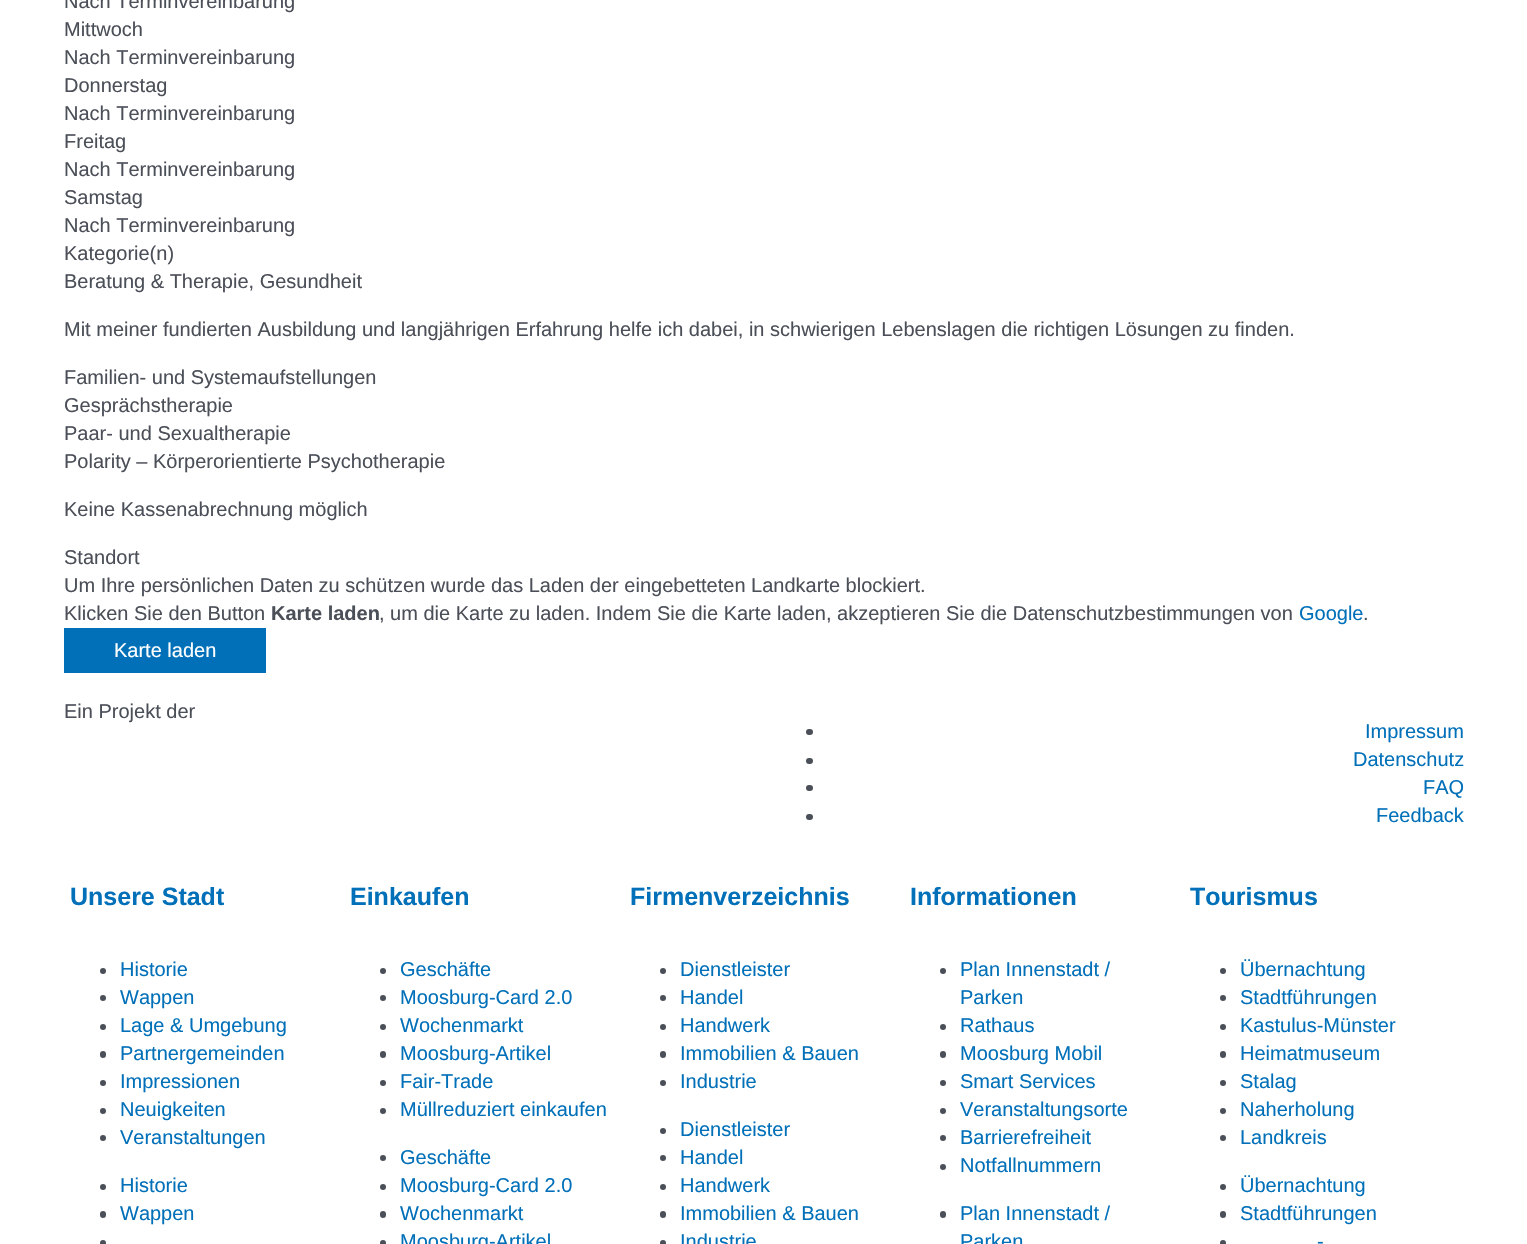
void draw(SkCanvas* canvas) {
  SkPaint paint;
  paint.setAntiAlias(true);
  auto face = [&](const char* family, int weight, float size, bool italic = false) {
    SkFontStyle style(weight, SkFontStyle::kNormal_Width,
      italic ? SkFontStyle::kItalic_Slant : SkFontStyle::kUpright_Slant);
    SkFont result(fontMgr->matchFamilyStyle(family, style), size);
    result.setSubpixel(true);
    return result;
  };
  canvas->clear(0xffffffff);
  paint.setColor(0xff0170b9);
  canvas->drawRect(SkRect::MakeXYWH(64, 628, 202, 45), paint);
  paint.setColor(0xff4b4f58);
  canvas->drawRoundRect(SkRect::MakeXYWH(806, 729, 7, 6), 3, 3, paint);
  canvas->drawRoundRect(SkRect::MakeXYWH(806, 758, 7, 6), 3, 3, paint);
  canvas->drawRoundRect(SkRect::MakeXYWH(806, 785, 7, 6), 3, 3, paint);
  canvas->drawRoundRect(SkRect::MakeXYWH(806, 814, 7, 6), 3, 3, paint);
  canvas->drawCircle(103, 971, 3, paint);
  canvas->drawCircle(103, 998, 3, paint);
  canvas->drawCircle(103, 1027, 3, paint);
  canvas->drawRoundRect(SkRect::MakeXYWH(100, 1051, 6, 7), 3, 3, paint);
  canvas->drawCircle(103, 1083, 3, paint);
  canvas->drawCircle(103, 1111, 3, paint);
  canvas->drawCircle(103, 1138, 3, paint);
  canvas->drawCircle(103, 1187, 3, paint);
  canvas->drawRoundRect(SkRect::MakeXYWH(100, 1211, 6, 7), 3, 3, paint);
  canvas->drawCircle(103, 1243, 3, paint);
  canvas->drawCircle(383, 971, 3, paint);
  canvas->drawCircle(383, 998, 3, paint);
  canvas->drawCircle(383, 1027, 3, paint);
  canvas->drawRoundRect(SkRect::MakeXYWH(380, 1051, 6, 7), 3, 3, paint);
  canvas->drawCircle(383, 1083, 3, paint);
  canvas->drawCircle(383, 1111, 3, paint);
  canvas->drawCircle(383, 1158, 3, paint);
  canvas->drawCircle(383, 1187, 3, paint);
  canvas->drawRoundRect(SkRect::MakeXYWH(380, 1211, 6, 7), 3, 3, paint);
  canvas->drawCircle(383, 1243, 3, paint);
  canvas->drawCircle(663, 971, 3, paint);
  canvas->drawCircle(663, 998, 3, paint);
  canvas->drawCircle(663, 1027, 3, paint);
  canvas->drawRoundRect(SkRect::MakeXYWH(660, 1051, 6, 7), 3, 3, paint);
  canvas->drawCircle(663, 1083, 3, paint);
  canvas->drawCircle(663, 1131, 3, paint);
  canvas->drawCircle(663, 1158, 3, paint);
  canvas->drawCircle(663, 1187, 3, paint);
  canvas->drawRoundRect(SkRect::MakeXYWH(660, 1211, 6, 7), 3, 3, paint);
  canvas->drawCircle(663, 1243, 3, paint);
  canvas->drawCircle(943, 971, 3, paint);
  canvas->drawCircle(943, 1027, 3, paint);
  canvas->drawRoundRect(SkRect::MakeXYWH(940, 1051, 6, 7), 3, 3, paint);
  canvas->drawCircle(943, 1083, 3, paint);
  canvas->drawCircle(943, 1111, 3, paint);
  canvas->drawCircle(943, 1138, 3, paint);
  canvas->drawCircle(943, 1167, 3, paint);
  canvas->drawRoundRect(SkRect::MakeXYWH(940, 1211, 6, 7), 3, 3, paint);
  canvas->drawCircle(1223, 971, 3, paint);
  canvas->drawCircle(1223, 998, 3, paint);
  canvas->drawCircle(1223, 1027, 3, paint);
  canvas->drawRoundRect(SkRect::MakeXYWH(1220, 1051, 6, 7), 3, 3, paint);
  canvas->drawCircle(1223, 1083, 3, paint);
  canvas->drawCircle(1223, 1111, 3, paint);
  canvas->drawCircle(1223, 1138, 3, paint);
  canvas->drawCircle(1223, 1187, 3, paint);
  canvas->drawRoundRect(SkRect::MakeXYWH(1220, 1211, 6, 7), 3, 3, paint);
  canvas->drawCircle(1223, 1243, 3, paint);
  auto f0 = face("Liberation Sans", 400, 20);
  {
    const struct { const char* s; float x, y; } items[] = {
      {"Nach Terminvereinbarung", 64, 8},
      {"Mittwoch", 64, 36},
      {"Nach Terminvereinbarung", 64, 64},
      {"Donnerstag", 64, 92},
      {"Nach Terminvereinbarung", 64, 120},
      {"Freitag", 64, 148},
      {"Nach Terminvereinbarung", 64, 176},
      {"Samstag", 64, 204},
      {"Nach Terminvereinbarung", 64, 232},
      {"Kategorie(n)", 64, 260},
      {"Beratung & Therapie, Gesundheit", 64, 288},
      {"Mit meiner fundierten Ausbildung und langjährigen Erfahrung helfe ich dabei, in schwierigen Lebenslagen die richtigen Lösungen zu finden.", 64, 336},
      {"Familien- und Systemaufstellungen", 64, 384},
      {"Gesprächstherapie", 64, 412},
      {"Paar- und Sexualtherapie", 64, 440},
      {"Polarity – Körperorientierte Psychotherapie", 64, 468},
      {"Keine Kassenabrechnung möglich", 64, 516},
      {"Standort", 64, 564},
      {"Um Ihre persönlichen Daten zu schützen wurde das Laden der eingebetteten Landkarte blockiert.", 64, 592},
      {"Klicken Sie den Button", 64, 620},
    };
    for (auto [s, x, y] : items) {
      canvas->drawString(s, x, y, f0, paint);
    }
  }
  auto f1 = face("Liberation Sans", 700, 20);
  canvas->drawString("Karte laden", 271, 620, f1, paint);
  canvas->drawString(", um die Karte zu laden. Indem Sie die Karte laden, akzeptieren Sie die Datenschutzbestimmungen von", 379, 620, f0, paint);
  paint.setColor(0xff0170b9);
  canvas->drawString("Google", 1299, 620, f0, paint);
  paint.setColor(0xff4b4f58);
  canvas->drawString(".", 1363, 620, f0, paint);
  paint.setColor(0xffffffff);
  canvas->drawString("Karte laden", 114, 657, f0, paint);
  paint.setColor(0xff4b4f58);
  canvas->drawString("Ein Projekt der", 64, 718, f0, paint);
  paint.setColor(0xff0170b9);
  {
    const struct { const char* s; float x, y; } items[] = {
      {"Impressum", 1365, 738},
      {"Datenschutz", 1353, 766},
      {"FAQ", 1423, 794},
      {"Feedback", 1376, 822},
    };
    for (auto [s, x, y] : items) {
      canvas->drawString(s, x, y, f0, paint);
    }
  }
  auto f2 = face("Liberation Sans", 700, 25);
  canvas->drawString("Unsere Stadt", 70, 905, f2, paint);
  {
    const struct { const char* s; float x, y; } items[] = {
      {"Historie", 120, 976},
      {"Wappen", 120, 1004},
      {"Lage & Umgebung", 120, 1032},
      {"Partnergemeinden", 120, 1060},
      {"Impressionen", 120, 1088},
      {"Neuigkeiten", 120, 1116},
      {"Veranstaltungen", 120, 1144},
      {"Historie", 120, 1192},
      {"Wappen", 120, 1220},
    };
    for (auto [s, x, y] : items) {
      canvas->drawString(s, x, y, f0, paint);
    }
  }
  canvas->drawString("Einkaufen", 350, 905, f2, paint);
  {
    const struct { const char* s; float x, y; } items[] = {
      {"Geschäfte", 400, 976},
      {"Moosburg-Card 2.0", 400, 1004},
      {"Wochenmarkt", 400, 1032},
      {"Moosburg-Artikel", 400, 1060},
      {"Fair-Trade", 400, 1088},
      {"Müllreduziert einkaufen", 400, 1116},
      {"Geschäfte", 400, 1164},
      {"Moosburg-Card 2.0", 400, 1192},
      {"Wochenmarkt", 400, 1220},
      {"Moosburg-Artikel", 400, 1248},
    };
    for (auto [s, x, y] : items) {
      canvas->drawString(s, x, y, f0, paint);
    }
  }
  canvas->drawString("Firmenverzeichnis", 630, 905, f2, paint);
  {
    const struct { const char* s; float x, y; } items[] = {
      {"Dienstleister", 680, 976},
      {"Handel", 680, 1004},
      {"Handwerk", 680, 1032},
      {"Immobilien & Bauen", 680, 1060},
      {"Industrie", 680, 1088},
      {"Dienstleister", 680, 1136},
      {"Handel", 680, 1164},
      {"Handwerk", 680, 1192},
      {"Immobilien & Bauen", 680, 1220},
      {"Industrie", 680, 1248},
    };
    for (auto [s, x, y] : items) {
      canvas->drawString(s, x, y, f0, paint);
    }
  }
  canvas->drawString("Informationen", 910, 905, f2, paint);
  {
    const struct { const char* s; float x, y; } items[] = {
      {"Plan Innenstadt /", 960, 976},
      {"Parken", 960, 1004},
      {"Rathaus", 960, 1032},
      {"Moosburg Mobil", 960, 1060},
      {"Smart Services", 960, 1088},
      {"Veranstaltungsorte", 960, 1116},
      {"Barrierefreiheit", 960, 1144},
      {"Notfallnummern", 960, 1172},
      {"Plan Innenstadt /", 960, 1220},
      {"Parken", 960, 1248},
    };
    for (auto [s, x, y] : items) {
      canvas->drawString(s, x, y, f0, paint);
    }
  }
  canvas->drawString("Tourismus", 1190, 905, f2, paint);
  {
    const struct { const char* s; float x, y; } items[] = {
      {"Übernachtung", 1240, 976},
      {"Stadtführungen", 1240, 1004},
      {"Kastulus-Münster", 1240, 1032},
      {"Heimatmuseum", 1240, 1060},
      {"Stalag", 1240, 1088},
      {"Naherholung", 1240, 1116},
      {"Landkreis", 1240, 1144},
      {"Übernachtung", 1240, 1192},
      {"Stadtführungen", 1240, 1220},
      {"-", 1317, 1248},
    };
    for (auto [s, x, y] : items) {
      canvas->drawString(s, x, y, f0, paint);
    }
  }
}
